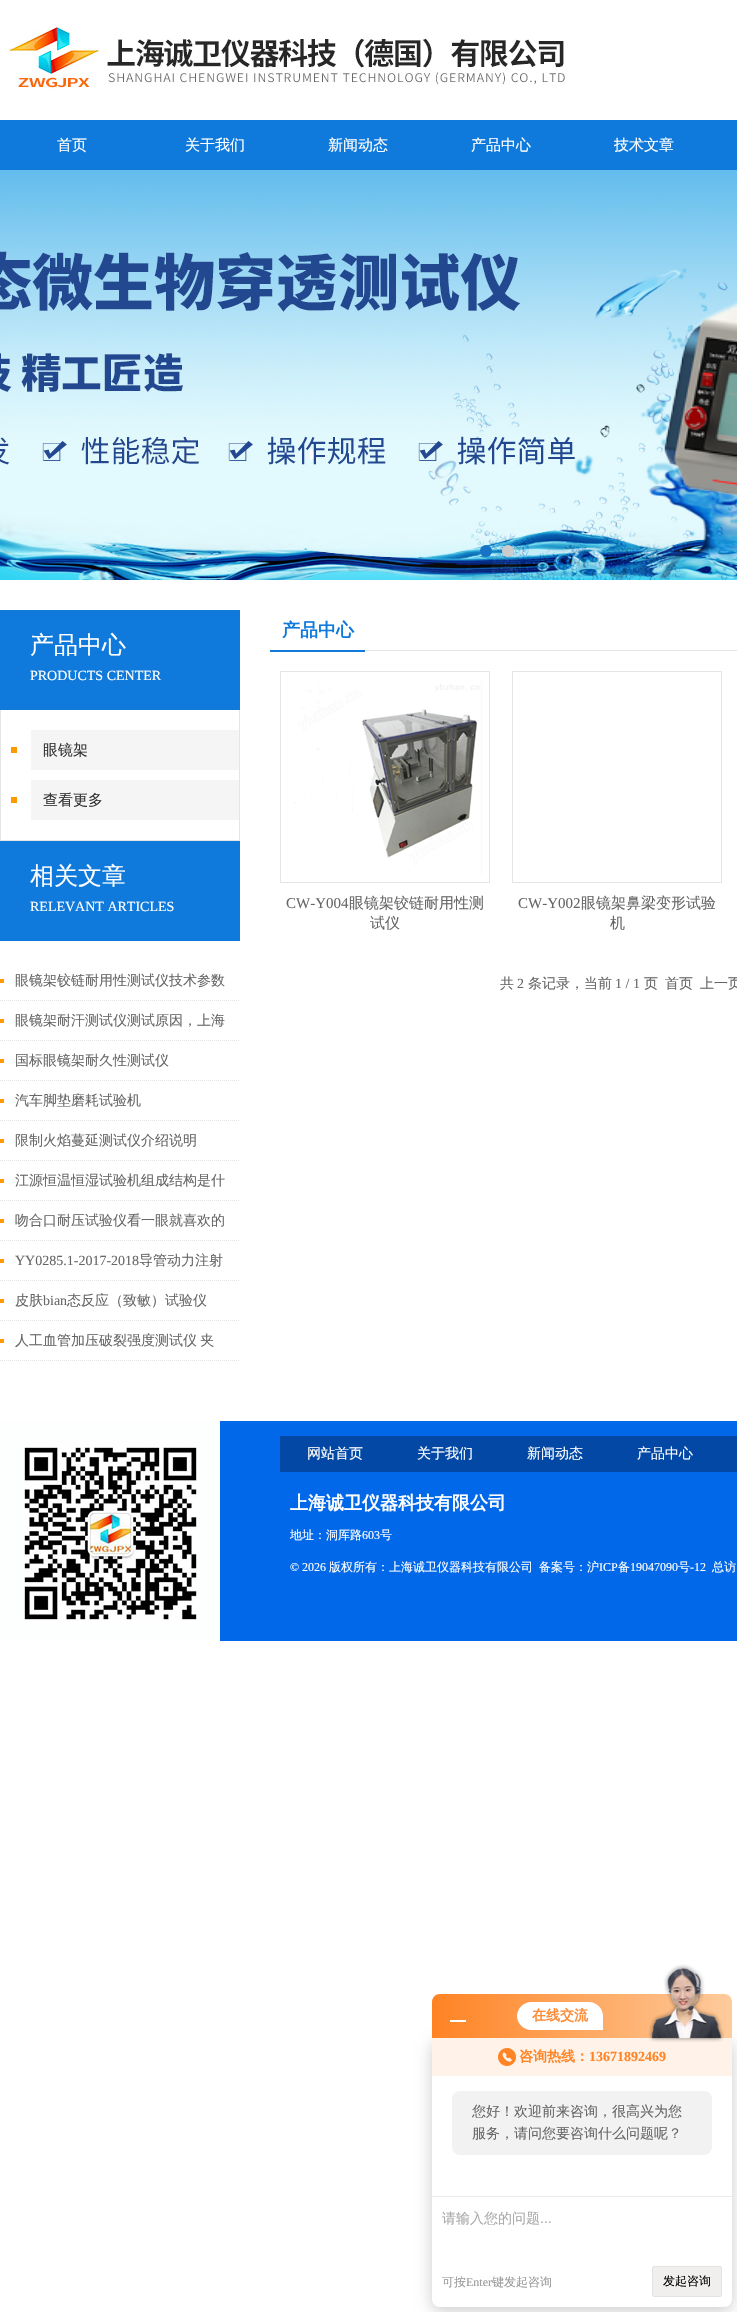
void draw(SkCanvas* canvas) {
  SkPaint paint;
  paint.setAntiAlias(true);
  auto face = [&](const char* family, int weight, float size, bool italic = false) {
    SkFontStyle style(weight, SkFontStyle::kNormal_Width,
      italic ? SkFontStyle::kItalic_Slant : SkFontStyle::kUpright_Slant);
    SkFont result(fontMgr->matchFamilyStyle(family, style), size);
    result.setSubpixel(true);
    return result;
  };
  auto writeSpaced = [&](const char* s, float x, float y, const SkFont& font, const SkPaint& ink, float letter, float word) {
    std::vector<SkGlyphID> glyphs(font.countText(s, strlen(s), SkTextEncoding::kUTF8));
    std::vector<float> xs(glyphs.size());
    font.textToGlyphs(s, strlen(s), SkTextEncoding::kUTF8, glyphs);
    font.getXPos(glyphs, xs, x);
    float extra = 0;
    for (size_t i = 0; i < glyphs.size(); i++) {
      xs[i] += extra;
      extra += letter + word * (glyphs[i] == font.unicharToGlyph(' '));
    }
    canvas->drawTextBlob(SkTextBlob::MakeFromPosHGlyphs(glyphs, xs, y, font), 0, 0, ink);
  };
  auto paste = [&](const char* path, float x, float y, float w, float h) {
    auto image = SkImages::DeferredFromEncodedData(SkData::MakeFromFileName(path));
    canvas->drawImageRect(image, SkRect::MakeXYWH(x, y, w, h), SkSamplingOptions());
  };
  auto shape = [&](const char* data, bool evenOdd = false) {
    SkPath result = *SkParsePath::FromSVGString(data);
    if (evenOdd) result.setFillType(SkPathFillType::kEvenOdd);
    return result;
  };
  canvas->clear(0xffffffff);
  paste("img/1.png", 8, 23, 559, 67);
  paint.setColor(0xff0f7adb);
  canvas->drawRect(SkRect::MakeXYWH(0, 120, 737, 50), paint);
  paste("img/2.png", 0, 170, 737, 410);
  paint.setColor(0xff1773c6);
  canvas->drawCircle(486, 551, 6, paint);
  paint.setColor(0xffcccccc);
  canvas->drawCircle(508, 551, 6, paint);
  {
    const struct { float x, y, w, h; SkColor color; } items[] = {
      {0, 610, 240, 100, 0xff0f7adb},
      {239, 710, 1, 131, 0xffe5e5e5},
      {0, 840, 240, 1, 0xffe5e5e5},
      {0, 710, 1, 131, 0xffe5e5e5},
      {11, 747, 6, 6, 0xffff9900},
      {31, 730, 208, 40, 0xfff5f5f5},
      {11, 797, 6, 6, 0xffff9900},
      {31, 780, 208, 40, 0xfff5f5f5},
      {0, 841, 240, 100, 0xff0f7adb},
      {0, 979, 4, 4, 0xffff9900},
    };
    for (auto [x, y, w, h, color] : items) {
      paint.setColor(color);
      canvas->drawRect(SkRect::MakeXYWH(x, y, w, h), paint);
    }
  }
  paint.setStroke(true);
  paint.setStrokeWidth(1);
  paint.setColor(0xffe5e5e5);
  paint.setPathEffect(SkDashPathEffect::Make({{1, 1}}, 0));
  canvas->drawPath(shape("M0 1000.5H240"), paint);
  paint.setPathEffect(nullptr);
  paint.setStroke(false);
  paint.setColor(0xffff9900);
  canvas->drawRect(SkRect::MakeXYWH(0, 1019, 4, 4), paint);
  paint.setStroke(true);
  paint.setColor(0xffe5e5e5);
  paint.setPathEffect(SkDashPathEffect::Make({{1, 1}}, 0));
  canvas->drawPath(shape("M0 1040.5H240"), paint);
  paint.setPathEffect(nullptr);
  paint.setStroke(false);
  paint.setColor(0xffff9900);
  canvas->drawRect(SkRect::MakeXYWH(0, 1059, 4, 4), paint);
  paint.setStroke(true);
  paint.setColor(0xffe5e5e5);
  paint.setPathEffect(SkDashPathEffect::Make({{1, 1}}, 0));
  canvas->drawPath(shape("M0 1080.5H240"), paint);
  paint.setPathEffect(nullptr);
  paint.setStroke(false);
  paint.setColor(0xffff9900);
  canvas->drawRect(SkRect::MakeXYWH(0, 1099, 4, 4), paint);
  paint.setStroke(true);
  paint.setColor(0xffe5e5e5);
  paint.setPathEffect(SkDashPathEffect::Make({{1, 1}}, 0));
  canvas->drawPath(shape("M0 1120.5H240"), paint);
  paint.setPathEffect(nullptr);
  paint.setStroke(false);
  paint.setColor(0xffff9900);
  canvas->drawRect(SkRect::MakeXYWH(0, 1139, 4, 4), paint);
  paint.setStroke(true);
  paint.setColor(0xffe5e5e5);
  paint.setPathEffect(SkDashPathEffect::Make({{1, 1}}, 0));
  canvas->drawPath(shape("M0 1160.5H240"), paint);
  paint.setPathEffect(nullptr);
  paint.setStroke(false);
  paint.setColor(0xffff9900);
  canvas->drawRect(SkRect::MakeXYWH(0, 1179, 4, 4), paint);
  paint.setStroke(true);
  paint.setColor(0xffe5e5e5);
  paint.setPathEffect(SkDashPathEffect::Make({{1, 1}}, 0));
  canvas->drawPath(shape("M0 1200.5H240"), paint);
  paint.setPathEffect(nullptr);
  paint.setStroke(false);
  paint.setColor(0xffff9900);
  canvas->drawRect(SkRect::MakeXYWH(0, 1219, 4, 4), paint);
  paint.setStroke(true);
  paint.setColor(0xffe5e5e5);
  paint.setPathEffect(SkDashPathEffect::Make({{1, 1}}, 0));
  canvas->drawPath(shape("M0 1240.5H240"), paint);
  paint.setPathEffect(nullptr);
  paint.setStroke(false);
  paint.setColor(0xffff9900);
  canvas->drawRect(SkRect::MakeXYWH(0, 1259, 4, 4), paint);
  paint.setStroke(true);
  paint.setColor(0xffe5e5e5);
  paint.setPathEffect(SkDashPathEffect::Make({{1, 1}}, 0));
  canvas->drawPath(shape("M0 1280.5H240"), paint);
  paint.setPathEffect(nullptr);
  paint.setStroke(false);
  paint.setColor(0xffff9900);
  canvas->drawRect(SkRect::MakeXYWH(0, 1299, 4, 4), paint);
  paint.setStroke(true);
  paint.setColor(0xffe5e5e5);
  paint.setPathEffect(SkDashPathEffect::Make({{1, 1}}, 0));
  canvas->drawPath(shape("M0 1320.5H240"), paint);
  paint.setPathEffect(nullptr);
  paint.setStroke(false);
  paint.setColor(0xffff9900);
  canvas->drawRect(SkRect::MakeXYWH(0, 1339, 4, 4), paint);
  paint.setStroke(true);
  paint.setColor(0xffe5e5e5);
  paint.setPathEffect(SkDashPathEffect::Make({{1, 1}}, 0));
  canvas->drawPath(shape("M0 1360.5H240"), paint);
  paint.setPathEffect(nullptr);
  paint.setStroke(false);
  canvas->drawRect(SkRect::MakeXYWH(365, 650, 372, 1), paint);
  paint.setColor(0xff0f7adb);
  canvas->drawRect(SkRect::MakeXYWH(270, 650, 95, 2), paint);
  paint.setStroke(true);
  paint.setColor(0xffe5e5e5);
  canvas->drawRect(SkRect::MakeXYWH(280.5f, 671.5f, 209, 211), paint);
  paste("img/3.png", 294, 681, 188, 193);
  canvas->drawRect(SkRect::MakeXYWH(512.5f, 671.5f, 209, 211), paint);
  paint.setStroke(false);
  paint.setColor(0xff0168e9);
  canvas->drawRect(SkRect::MakeXYWH(220, 1421, 517, 220), paint);
  paste("img/4.png", 0, 1421, 220, 220);
  paint.setColor(0xff0248a4);
  canvas->drawRect(SkRect::MakeXYWH(280, 1436, 457, 36), paint);
  paint.setColor(0x33000000);
  paint.setMaskFilter(SkMaskFilter::MakeBlur(kNormal_SkBlurStyle, 8));
  canvas->drawRoundRect(SkRect::MakeXYWH(432, 2042, 300, 269), 8, 8, paint);
  paint.setMaskFilter(nullptr);
  {
    const SkColor colors[] = {0xffff8324, 0xfffecb9c};
    const float stops[] = {0, 1};
    const SkPoint ends[] = {{432, 2016}, {732, 2016}};
    paint.setShader(SkGradientShader::MakeLinear(ends, colors, stops, 2, SkTileMode::kClamp));
    paint.setAlpha(255);
  }
  canvas->drawPath(shape("M440 1994H724C728.5 1994 732 1997.5 732 2002V2038H432V2002C432 1997.5 435.5 1994 440 1994Z"), paint);
  paint.setShader(nullptr);
  paint.setColor(0xffffffff);
  canvas->drawRect(SkRect::MakeXYWH(450, 2020, 16, 2), paint);
  canvas->drawPath(shape("M531 2002H589C596.5 2002 603 2008.5 603 2016V2030H531C523.5 2030 517 2023.5 517 2016C517 2008.5 523.5 2002 531 2002Z"), paint);
  canvas->drawPath(shape("M432 2038H732V2299C732 2303.5 728.5 2307 724 2307H440C435.5 2307 432 2303.5 432 2299Z"), paint);
  paint.setColor(0xfffff3e9);
  canvas->drawRect(SkRect::MakeXYWH(432, 2038, 300, 38), paint);
  paste("img/5.png", 648, 1964, 76, 78);
  paste("img/6.png", 498, 2048, 18, 18);
  paint.setColor(0xfff2f2f2);
  canvas->drawRoundRect(SkRect::MakeXYWH(452, 2091, 260, 64), 8, 8, paint);
  paint.setColor(0xffeaeaea);
  canvas->drawRect(SkRect::MakeXYWH(432, 2196, 300, 1), paint);
  paint.setColor(0xfff0efed);
  canvas->drawRoundRect(SkRect::MakeXYWH(652.5f, 2266.5f, 69, 30), 1.5f, 1.5f, paint);
  paint.setStroke(true);
  paint.setColor(0xffe2e2e2);
  canvas->drawRoundRect(SkRect::MakeXYWH(652.5f, 2266.5f, 69, 30), 1.5f, 1.5f, paint);
  auto f0 = face("WenQuanYi Zen Hei", 500, 15);
  paint.setStroke(false);
  paint.setColor(0xffffffff);
  {
    const struct { const char* s; float x, y; } items[] = {
      {"首页", 57, 150},
      {"关于我们", 185, 150},
      {"新闻动态", 328, 150},
      {"产品中心", 471, 150},
      {"技术文章", 614, 150},
    };
    for (auto [s, x, y] : items) {
      canvas->drawString(s, x, y, f0, paint);
    }
  }
  auto f1 = face("WenQuanYi Zen Hei", 500, 24);
  canvas->drawString("产品中心", 30, 653, f1, paint);
  auto f2 = face("Liberation Serif", 400, 14);
  canvas->drawString("PRODUCTS CENTER", 30, 680, f2, paint);
  paint.setColor(0xff333333);
  canvas->drawString("眼镜架", 43, 755, f0, paint);
  canvas->drawString("查看更多", 43, 805, f0, paint);
  paint.setColor(0xffffffff);
  canvas->drawString("相关文章", 30, 884, f1, paint);
  canvas->drawString("RELEVANT ARTICLES", 30, 911, f2, paint);
  auto f3 = face("WenQuanYi Zen Hei", 500, 14);
  paint.setColor(0xff666666);
  {
    const struct { const char* s; float x, y; } items[] = {
      {"眼镜架铰链耐用性测试仪技术参数", 15, 985},
      {"眼镜架耐汗测试仪测试原因，上海", 15, 1025},
      {"国标眼镜架耐久性测试仪", 15, 1065},
      {"汽车脚垫磨耗试验机", 15, 1105},
      {"限制火焰蔓延测试仪介绍说明", 15, 1145},
      {"江源恒温恒湿试验机组成结构是什", 15, 1185},
      {"吻合口耐压试验仪看一眼就喜欢的", 15, 1225},
    };
    for (auto [s, x, y] : items) {
      canvas->drawString(s, x, y, f3, paint);
    }
  }
  canvas->drawString("YY0285.1-2017-2018", 15, 1265, f2, paint);
  canvas->drawString("导管动力注射", 139, 1265, f3, paint);
  canvas->drawString("皮肤", 15, 1305, f3, paint);
  canvas->drawString("bian", 43, 1305, f2, paint);
  canvas->drawString("态反应（致敏）试验仪", 67, 1305, f3, paint);
  writeSpaced("人工血管加压破裂强度测试仪 夹", 15, 1345, f3, paint, 0, -1);
  auto f4 = face("WenQuanYi Zen Hei", 700, 18);
  paint.setColor(0xff0f7adb);
  canvas->drawString("产品中心", 282, 636, f4, paint);
  auto f5 = face("Liberation Serif", 400, 15);
  paint.setColor(0xff666666);
  canvas->drawString("CW-Y004", 286, 908, f5, paint);
  canvas->drawString("眼镜架铰链耐用性测", 349, 908, f0, paint);
  canvas->drawString("试仪", 370, 928, f0, paint);
  canvas->drawString("CW-Y002", 518, 908, f5, paint);
  canvas->drawString("眼镜架鼻梁变形试验", 581, 908, f0, paint);
  canvas->drawString("机", 610, 928, f0, paint);
  canvas->drawString("共", 500, 988, f3, paint);
  canvas->drawString("2", 517, 988, f2, paint);
  canvas->drawString("条记录，当前", 528, 988, f3, paint);
  canvas->drawString("1 / 1", 615, 988, f2, paint);
  {
    const struct { const char* s; float x, y; } items[] = {
      {"页", 644, 988},
      {"首页", 665, 988},
      {"上一页", 700, 988},
    };
    for (auto [s, x, y] : items) {
      canvas->drawString(s, x, y, f3, paint);
    }
  }
  paint.setColor(0xffffffff);
  {
    const struct { const char* s; float x, y; } items[] = {
      {"网站首页", 307, 1458},
      {"关于我们", 417, 1458},
      {"新闻动态", 527, 1458},
      {"产品中心", 637, 1458},
    };
    for (auto [s, x, y] : items) {
      canvas->drawString(s, x, y, f3, paint);
    }
  }
  canvas->drawString("上海诚卫仪器科技有限公司", 290, 1509, f4, paint);
  auto f6 = face("WenQuanYi Zen Hei", 500, 12);
  canvas->drawString("地址：洞厍路", 290, 1539, f6, paint);
  auto f7 = face("Liberation Serif", 400, 12);
  canvas->drawString("603", 362, 1539, f7, paint);
  canvas->drawString("号", 380, 1539, f6, paint);
  canvas->drawString("© 2026", 290, 1571, f7, paint);
  canvas->drawString("版权所有：上海诚卫仪器科技有限公司", 329, 1571, f6, paint);
  canvas->drawString("备案号：沪", 539, 1571, f6, paint);
  canvas->drawString("ICP", 599, 1571, f7, paint);
  canvas->drawString("备", 618, 1571, f6, paint);
  canvas->drawString("19047090", 630, 1571, f7, paint);
  canvas->drawString("号", 678, 1571, f6, paint);
  canvas->drawString("-12", 690, 1571, f7, paint);
  canvas->drawString("总访", 712, 1571, f6, paint);
  auto f8 = face("WenQuanYi Zen Hei", 700, 14);
  paint.setColor(0xfffb8b36);
  canvas->drawString("在线交流", 532, 2020, f8, paint);
  paint.setColor(0xffff8426);
  canvas->drawString("咨询热线：", 519, 2061, f8, paint);
  auto f9 = face("Liberation Serif", 700, 14);
  canvas->drawString("13671892469", 589, 2061, f9, paint);
  paint.setColor(0xff666666);
  canvas->drawString("您好！欢迎前来咨询，很高兴为您", 472, 2116, f3, paint);
  canvas->drawString("服务，请问您要咨询什么问题呢？", 472, 2138, f3, paint);
  paint.setColor(0xffaaaaaa);
  canvas->drawString("请输入您的问题", 442, 2223, f3, paint);
  auto f10 = face("Liberation Sans", 400, 14);
  canvas->drawString("...", 540, 2223, f10, paint);
  paint.setColor(0xff999999);
  canvas->drawString("可按", 442, 2286, f6, paint);
  canvas->drawString("Enter", 466, 2286, f7, paint);
  canvas->drawString("键发起咨询", 492, 2286, f6, paint);
  paint.setColor(0xff000000);
  canvas->drawString("发起咨询", 663, 2285, f6, paint);
}
